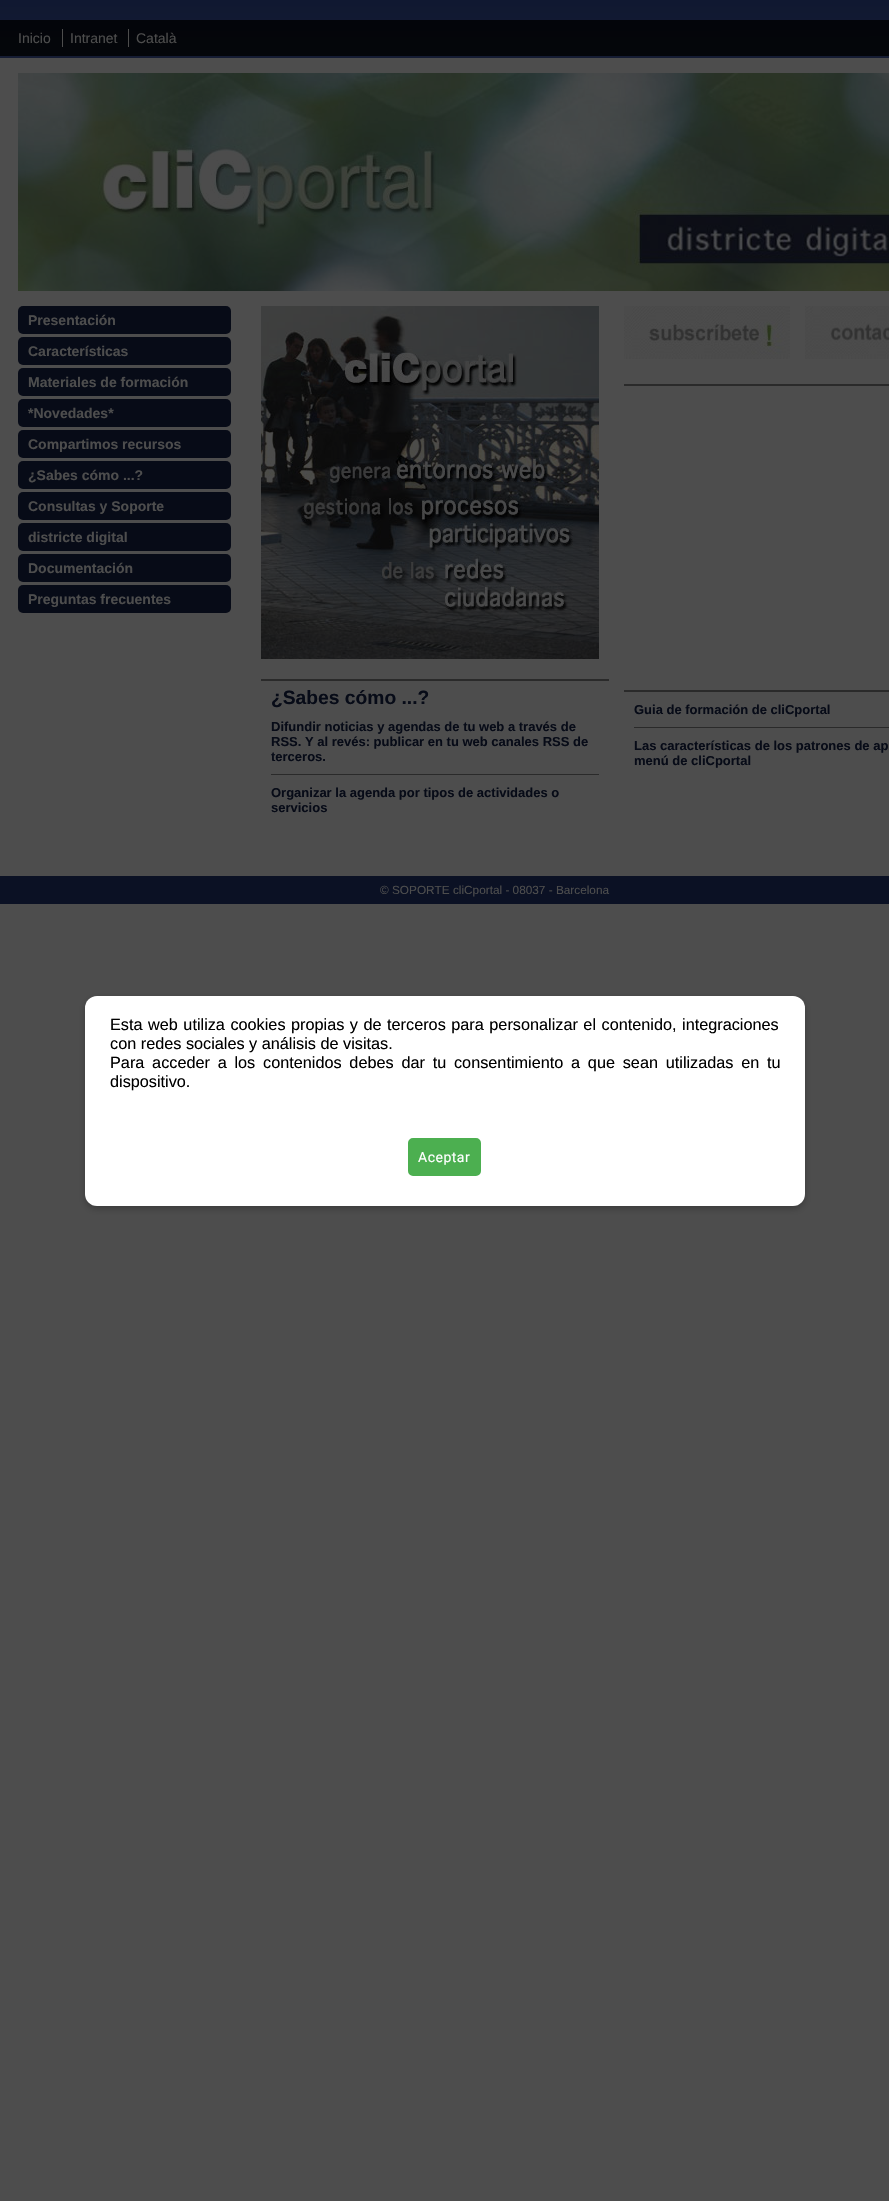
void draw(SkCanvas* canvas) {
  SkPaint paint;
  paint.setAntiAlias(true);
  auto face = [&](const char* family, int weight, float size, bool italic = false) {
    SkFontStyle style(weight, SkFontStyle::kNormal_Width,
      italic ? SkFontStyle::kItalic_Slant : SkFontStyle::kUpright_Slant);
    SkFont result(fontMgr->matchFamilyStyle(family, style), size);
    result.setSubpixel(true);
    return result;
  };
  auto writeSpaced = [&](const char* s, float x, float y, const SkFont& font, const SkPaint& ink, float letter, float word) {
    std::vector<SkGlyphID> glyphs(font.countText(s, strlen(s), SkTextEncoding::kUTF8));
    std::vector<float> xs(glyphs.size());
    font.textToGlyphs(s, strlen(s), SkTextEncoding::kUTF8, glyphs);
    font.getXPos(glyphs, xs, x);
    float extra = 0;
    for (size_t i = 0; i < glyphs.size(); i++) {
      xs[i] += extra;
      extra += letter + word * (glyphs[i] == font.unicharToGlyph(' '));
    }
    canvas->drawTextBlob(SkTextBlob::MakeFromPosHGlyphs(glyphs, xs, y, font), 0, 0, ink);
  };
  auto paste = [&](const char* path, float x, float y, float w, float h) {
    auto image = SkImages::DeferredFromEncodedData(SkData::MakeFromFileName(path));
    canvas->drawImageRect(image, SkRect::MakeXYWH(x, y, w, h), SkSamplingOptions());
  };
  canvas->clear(0xff4d4d4d);
  {
    const SkColor colors[] = {0xff101831, 0xff4d4d4d};
    const float stops[] = {0, 0.8f};
    const SkPoint ends[] = {{444, 0}, {445, 924}};
    paint.setShader(SkGradientShader::MakeLinear(ends, colors, stops, 2, SkTileMode::kClamp));
    paint.setAlpha(255);
  }
  canvas->drawRect(SkRect::MakeXYWH(0, 0, 889, 709), paint);
  {
    const SkColor colors[] = {0xff03050a, 0xff0f0f0f};
    const float stops[] = {0, 0.8f};
    const SkPoint ends[] = {{444, 0}, {445, 924}};
    paint.setShader(SkGradientShader::MakeLinear(ends, colors, stops, 2, SkTileMode::kClamp));
    paint.setAlpha(255);
  }
  canvas->drawRect(SkRect::MakeXYWH(0, 20, 889, 36), paint);
  paint.setShader(nullptr);
  {
    const struct { float x, y, w, h; SkColor color; } items[] = {
      {62, 29, 1, 18, 0xff4d4d4d},
      {128, 29, 1, 18, 0xff4d4d4d},
      {0, 58, 889, 651, 0xff4d4d4d},
    };
    for (auto [x, y, w, h, color] : items) {
      paint.setColor(color);
      canvas->drawRect(SkRect::MakeXYWH(x, y, w, h), paint);
    }
  }
  paste("img/1.png", 18, 73, 871, 218);
  paint.setColor(0xff070b17);
  canvas->drawRoundRect(SkRect::MakeXYWH(18, 306, 213, 28), 5, 5, paint);
  canvas->drawRoundRect(SkRect::MakeXYWH(18, 337, 213, 28), 5, 5, paint);
  canvas->drawRoundRect(SkRect::MakeXYWH(18, 368, 213, 28), 5, 5, paint);
  canvas->drawRoundRect(SkRect::MakeXYWH(18, 399, 213, 28), 5, 5, paint);
  canvas->drawRoundRect(SkRect::MakeXYWH(18, 430, 213, 28), 5, 5, paint);
  canvas->drawRoundRect(SkRect::MakeXYWH(18, 461, 213, 28), 5, 5, paint);
  canvas->drawRoundRect(SkRect::MakeXYWH(18, 492, 213, 28), 5, 5, paint);
  canvas->drawRoundRect(SkRect::MakeXYWH(18, 523, 213, 28), 5, 5, paint);
  canvas->drawRoundRect(SkRect::MakeXYWH(18, 554, 213, 28), 5, 5, paint);
  canvas->drawRoundRect(SkRect::MakeXYWH(18, 585, 213, 28), 5, 5, paint);
  paste("img/2.png", 261, 306, 338, 353);
  paint.setColor(0xff2a2a2a);
  canvas->drawRect(SkRect::MakeXYWH(261, 679, 348, 2), paint);
  canvas->drawRect(SkRect::MakeXYWH(271, 774, 328, 1), paint);
  paste("img/3.png", 624, 306, 166, 53);
  paste("img/4.png", 805, 306, 84, 53);
  {
    const struct { float x, y, w, h; SkColor color; } items[] = {
      {624, 384, 265, 2, 0xff2a2a2a},
      {624, 690, 265, 2, 0xff2a2a2a},
      {634, 727, 255, 1, 0xff2a2a2a},
      {0, 876, 889, 28, 0xff0b1124},
    };
    for (auto [x, y, w, h, color] : items) {
      paint.setColor(color);
      canvas->drawRect(SkRect::MakeXYWH(x, y, w, h), paint);
    }
  }
  paint.setColor(0x3b000000);
  paint.setMaskFilter(SkMaskFilter::MakeBlur(kNormal_SkBlurStyle, 3));
  canvas->drawRoundRect(SkRect::MakeXYWH(85, 999, 720, 210), 12, 12, paint);
  paint.setMaskFilter(nullptr);
  paint.setColor(0xffffffff);
  canvas->drawRoundRect(SkRect::MakeXYWH(85, 996, 720, 210), 12, 12, paint);
  paint.setColor(0xff4caf50);
  canvas->drawRoundRect(SkRect::MakeXYWH(409, 1139, 71, 36), 4, 4, paint);
  paint.setStroke(true);
  paint.setStrokeWidth(2);
  canvas->drawRoundRect(SkRect::MakeXYWH(409, 1139, 71, 36), 4, 4, paint);
  auto f0 = face("Liberation Sans", 400, 14);
  paint.setStroke(false);
  paint.setColor(0xff4d4d4d);
  {
    const struct { const char* s; float x, y; } items[] = {
      {"Inicio", 18, 43},
      {"Intranet", 70, 43},
      {"Català", 136, 43},
    };
    for (auto [s, x, y] : items) {
      canvas->drawString(s, x, y, f0, paint);
    }
  }
  auto f1 = face("Liberation Sans", 700, 14);
  {
    const struct { const char* s; float x, y; } items[] = {
      {"Presentación", 28, 325},
      {"Características", 28, 356},
      {"Materiales de formación", 28, 387},
      {"*Novedades*", 28, 418},
      {"Compartimos recursos", 28, 449},
      {"¿Sabes cómo ...?", 28, 480},
      {"Consultas y Soporte", 28, 511},
      {"districte digital", 28, 542},
      {"Documentación", 28, 573},
      {"Preguntas frecuentes", 28, 604},
    };
    for (auto [s, x, y] : items) {
      canvas->drawString(s, x, y, f1, paint);
    }
  }
  auto f2 = face("Liberation Sans", 700, 19.25f);
  paint.setColor(0xff070b17);
  canvas->drawString("¿Sabes cómo ...?", 271, 704, f2, paint);
  auto f3 = face("Liberation Sans", 700, 13);
  {
    const struct { const char* s; float x, y; } items[] = {
      {"Difundir noticias y agendas de tu web a través de", 271, 731},
      {"RSS. Y al revés: publicar en tu web canales RSS de", 271, 746},
      {"terceros.", 271, 761},
      {"Organizar la agenda por tipos de actividades o", 271, 797},
      {"servicios", 271, 812},
      {"Guia de formación de cliCportal", 634, 714},
      {"Las características de los patrones de ap", 634, 750},
      {"menú de cliCportal", 634, 765},
    };
    for (auto [s, x, y] : items) {
      canvas->drawString(s, x, y, f3, paint);
    }
  }
  auto f4 = face("Liberation Sans", 400, 11.8f);
  paint.setColor(0xff4d4d4d);
  canvas->drawString("© SOPORTE cliCportal - 08037 - Barcelona", 380, 894, f4, paint);
  auto f5 = face("Liberation Sans", 400, 16.25f);
  paint.setColor(0xff000000);
  writeSpaced("Esta web utiliza cookies propias y de terceros para personalizar el contenido, integraciones", 110, 1030, f5, paint, 0, 1);
  canvas->drawString("con redes sociales y análisis de visitas.", 110, 1049, f5, paint);
  writeSpaced("Para acceder a los contenidos debes dar tu consentimiento a que sean utilizadas en tu", 110, 1068, f5, paint, 0, 3.25f);
  canvas->drawString("dispositivo.", 110, 1087, f5, paint);
  auto f6 = face("Roboto", 400, 14);
  paint.setColor(0xffffffff);
  writeSpaced("Aceptar", 418, 1162, f6, paint, 0.5f, 0);
}
